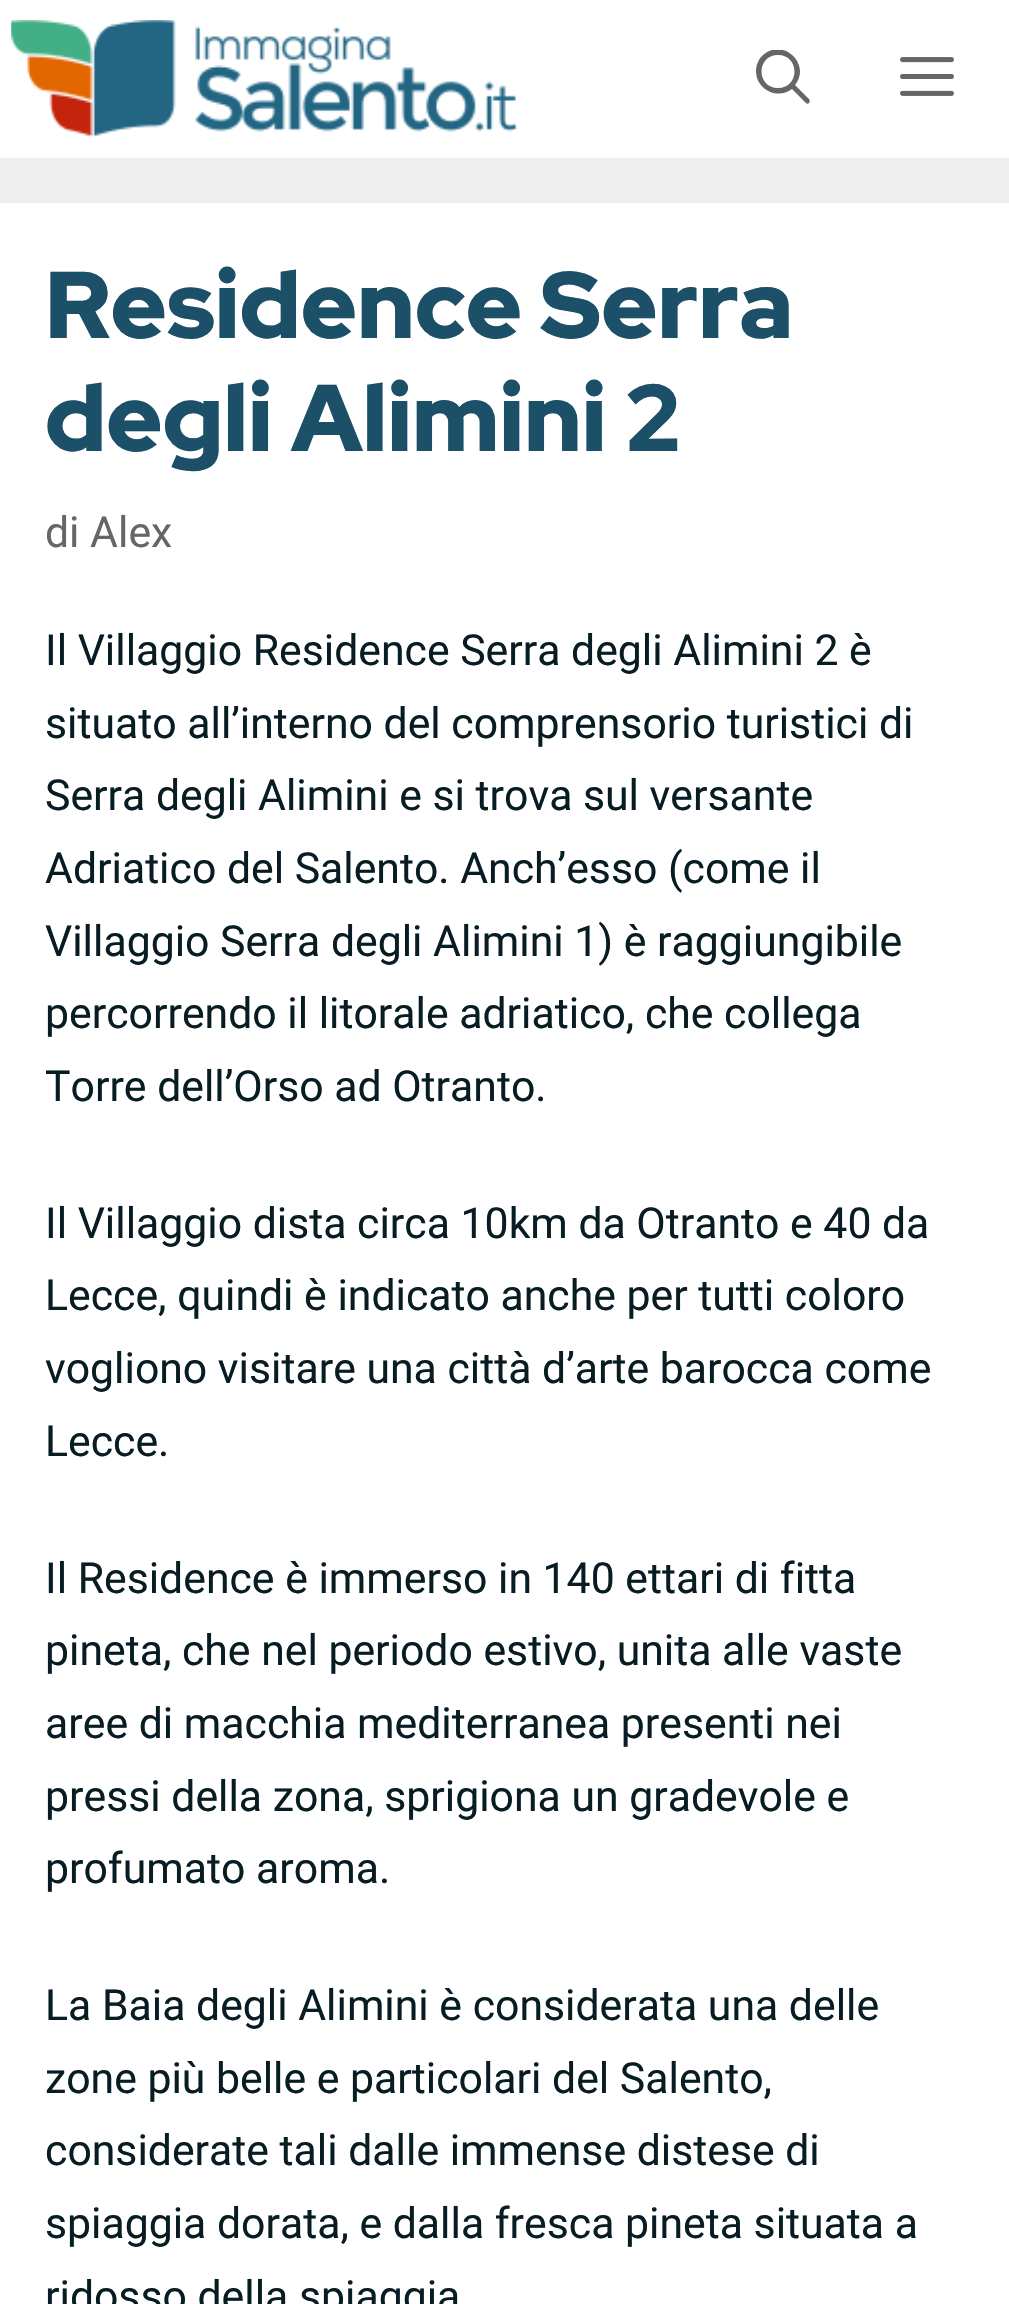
void draw(SkCanvas* canvas) {
  SkPaint paint;
  paint.setAntiAlias(true);
  auto face = [&](const char* family, int weight, float size, bool italic = false) {
    SkFontStyle style(weight, SkFontStyle::kNormal_Width,
      italic ? SkFontStyle::kItalic_Slant : SkFontStyle::kUpright_Slant);
    SkFont result(fontMgr->matchFamilyStyle(family, style), size);
    result.setSubpixel(true);
    return result;
  };
  auto paste = [&](const char* path, float x, float y, float w, float h) {
    auto image = SkImages::DeferredFromEncodedData(SkData::MakeFromFileName(path));
    canvas->drawImageRect(image, SkRect::MakeXYWH(x, y, w, h), SkSamplingOptions());
  };
  auto shape = [&](const char* data, bool evenOdd = false) {
    SkPath result = *SkParsePath::FromSVGString(data);
    if (evenOdd) result.setFillType(SkPathFillType::kEvenOdd);
    return result;
  };
  canvas->clear(0xffeeeeee);
  paint.setColor(0xffffffff);
  canvas->drawRect(SkRect::MakeXYWH(0, 0, 1009, 158), paint);
  paste("img/1.png", 11, 20, 507, 117);
  canvas->save();
  canvas->clipRect(SkRect::MakeXYWH(756, 50, 54, 54));
  paint.setColor(0xff666666);
  canvas->drawPath(shape("M778 55C756 55 756 88 778 88C800 88 800 55 778 55ZM756 71C756 66 758 60 762 56C782 36 812 64 795 85L809 99C810 100 810 102 809 103C808 104 807 104 806 103L792 89C778 100 756 90 756 71Z", true), paint);
  canvas->restore();
  paste("img/2.png", 900, 57, 54, 39);
  paint.setColor(0xffffffff);
  canvas->drawRect(SkRect::MakeXYWH(0, 203, 1009, 2101), paint);
  auto f0 = face("Red Hat Display", 900, 94.5f);
  paint.setColor(0xff1c4f68);
  canvas->drawString("Residence Serra", 45, 338, f0, paint);
  canvas->drawString("degli Alimini 2", 45, 451, f0, paint);
  auto f1 = face("Roboto", 400, 42.75f);
  paint.setColor(0xff666666);
  canvas->drawString("di Alex", 45, 547, f1, paint);
  paint.setColor(0xff081d23);
  {
    const struct { const char* s; float x, y; } items[] = {
      {"Il Villaggio Residence Serra degli Alimini 2 è", 45, 665},
      {"situato all’interno del comprensorio turistici di", 45, 738},
      {"Serra degli Alimini e si trova sul versante", 45, 810},
      {"Adriatico del Salento. Anch’esso (come il", 45, 883},
      {"Villaggio Serra degli Alimini 1) è raggiungibile", 45, 956},
      {"percorrendo il litorale adriatico, che collega", 45, 1028},
      {"Torre dell’Orso ad Otranto.", 45, 1101},
      {"Il Villaggio dista circa 10km da Otranto e 40 da", 45, 1238},
      {"Lecce, quindi è indicato anche per tutti coloro", 45, 1310},
      {"vogliono visitare una città d’arte barocca come", 45, 1383},
      {"Lecce.", 45, 1456},
      {"Il Residence è immerso in 140 ettari di fitta", 45, 1593},
      {"pineta, che nel periodo estivo, unita alle vaste", 45, 1665},
      {"aree di macchia mediterranea presenti nei", 45, 1738},
      {"pressi della zona, sprigiona un gradevole e", 45, 1811},
      {"profumato aroma.", 45, 1883},
      {"La Baia degli Alimini è considerata una delle", 45, 2020},
      {"zone più belle e particolari del Salento,", 45, 2093},
      {"considerate tali dalle immense distese di", 45, 2165},
      {"spiaggia dorata, e dalla fresca pineta situata a", 45, 2238},
      {"ridosso della spiaggia", 45, 2311},
    };
    for (auto [s, x, y] : items) {
      canvas->drawString(s, x, y, f1, paint);
    }
  }
}
